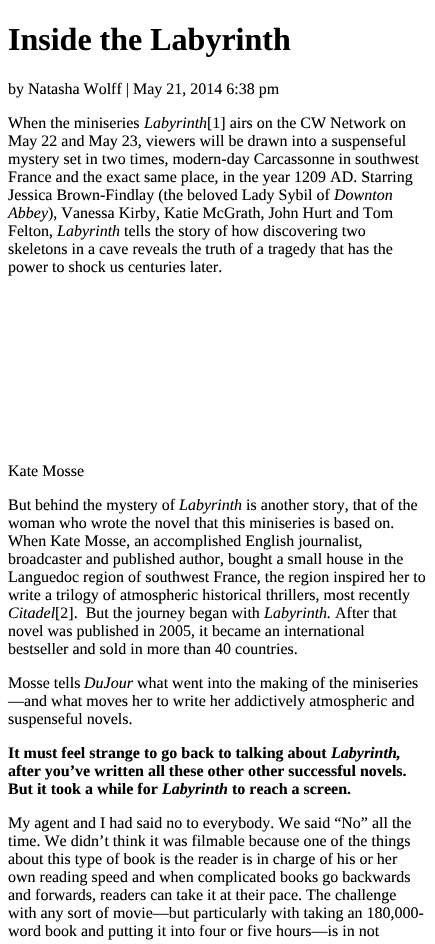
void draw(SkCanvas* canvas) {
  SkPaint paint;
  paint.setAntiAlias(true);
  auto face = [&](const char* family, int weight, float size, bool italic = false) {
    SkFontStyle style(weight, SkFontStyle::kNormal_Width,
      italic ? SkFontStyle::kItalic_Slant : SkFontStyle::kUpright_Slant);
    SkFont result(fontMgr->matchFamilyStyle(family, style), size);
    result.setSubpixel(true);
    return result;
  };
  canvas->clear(0xffffffff);
  auto f0 = face("Liberation Serif", 700, 32);
  paint.setColor(0xff000000);
  canvas->drawString("Inside the Labyrinth", 8, 50, f0, paint);
  auto f1 = face("Liberation Serif", 400, 16);
  canvas->drawString("by Natasha Wolff | May 21, 2014 6:38 pm", 8, 94, f1, paint);
  canvas->drawString("When the miniseries", 8, 128, f1, paint);
  auto f2 = face("Liberation Serif", 400, 16, true);
  canvas->drawString("Labyrinth", 144, 128, f2, paint);
  {
    const struct { const char* s; float x, y; } items[] = {
      {"[1] airs on the CW Network on", 207, 128},
      {"May 22 and May 23, viewers will be drawn into a suspenseful", 8, 146},
      {"mystery set in two times, modern-day Carcassonne in southwest", 8, 164},
      {"France and the exact same place, in the year 1209 AD. Starring", 8, 182},
      {"Jessica Brown-Findlay (the beloved Lady Sybil of", 8, 200},
    };
    for (auto [s, x, y] : items) {
      canvas->drawString(s, x, y, f1, paint);
    }
  }
  canvas->drawString("Downton", 334, 200, f2, paint);
  canvas->drawString("Abbey", 8, 218, f2, paint);
  canvas->drawString("), Vanessa Kirby, Katie McGrath, John Hurt and Tom", 48, 218, f1, paint);
  canvas->drawString("Felton,", 8, 236, f1, paint);
  canvas->drawString("Labyrinth", 57, 236, f2, paint);
  {
    const struct { const char* s; float x, y; } items[] = {
      {"tells the story of how discovering two", 124, 236},
      {"skeletons in a cave reveals the truth of a tragedy that has the", 8, 254},
      {"power to shock us centuries later.", 8, 272},
      {"Kate Mosse", 8, 476},
      {"But behind the mystery of", 8, 510},
    };
    for (auto [s, x, y] : items) {
      canvas->drawString(s, x, y, f1, paint);
    }
  }
  canvas->drawString("Labyrinth", 179, 510, f2, paint);
  {
    const struct { const char* s; float x, y; } items[] = {
      {"is another story, that of the", 246, 510},
      {"woman who wrote the novel that this miniseries is based on.", 8, 528},
      {"When Kate Mosse, an accomplished English journalist,", 8, 546},
      {"broadcaster and published author, bought a small house in the", 8, 564},
      {"Languedoc region of southwest France, the region inspired her to", 8, 582},
      {"write a trilogy of atmospheric historical thrillers, most recently", 8, 600},
    };
    for (auto [s, x, y] : items) {
      canvas->drawString(s, x, y, f1, paint);
    }
  }
  canvas->drawString("Citadel", 8, 618, f2, paint);
  canvas->drawString("[2].  But the journey began with", 55, 618, f1, paint);
  canvas->drawString("Labyrinth.", 264, 618, f2, paint);
  {
    const struct { const char* s; float x, y; } items[] = {
      {"After that", 335, 618},
      {"novel was published in 2005, it became an international", 8, 636},
      {"bestseller and sold in more than 40 countries.", 8, 654},
      {"Mosse tells", 8, 688},
    };
    for (auto [s, x, y] : items) {
      canvas->drawString(s, x, y, f1, paint);
    }
  }
  canvas->drawString("DuJour", 84, 688, f2, paint);
  {
    const struct { const char* s; float x, y; } items[] = {
      {"what went into the making of the miniseries", 137, 688},
      {"—and what moves her to write her addictively atmospheric and", 8, 706},
      {"suspenseful novels.", 8, 724},
    };
    for (auto [s, x, y] : items) {
      canvas->drawString(s, x, y, f1, paint);
    }
  }
  auto f3 = face("Liberation Serif", 700, 16);
  canvas->drawString("It must feel strange to go back to talking about", 8, 758, f3, paint);
  auto f4 = face("Liberation Serif", 700, 16, true);
  canvas->drawString("Labyrinth", 331, 758, f4, paint);
  {
    const struct { const char* s; float x, y; } items[] = {
      {",", 396, 758},
      {"after you’ve written all these other other successful novels.", 8, 776},
      {"But it took a while for", 8, 794},
    };
    for (auto [s, x, y] : items) {
      canvas->drawString(s, x, y, f3, paint);
    }
  }
  canvas->drawString("Labyrinth", 162, 794, f4, paint);
  canvas->drawString("to reach a screen.", 232, 794, f3, paint);
  {
    const struct { const char* s; float x, y; } items[] = {
      {"My agent and I had said no to everybody. We said “No” all the", 8, 828},
      {"time. We didn’t think it was filmable because one of the things", 8, 846},
      {"about this type of book is the reader is in charge of his or her", 8, 864},
      {"own reading speed and when complicated books go backwards", 8, 882},
      {"and forwards, readers can take it at their pace. The challenge", 8, 900},
      {"with any sort of movie—but particularly with taking an 180,000-", 8, 918},
      {"word book and putting it into four or five hours—is in not", 8, 936},
    };
    for (auto [s, x, y] : items) {
      canvas->drawString(s, x, y, f1, paint);
    }
  }
}
